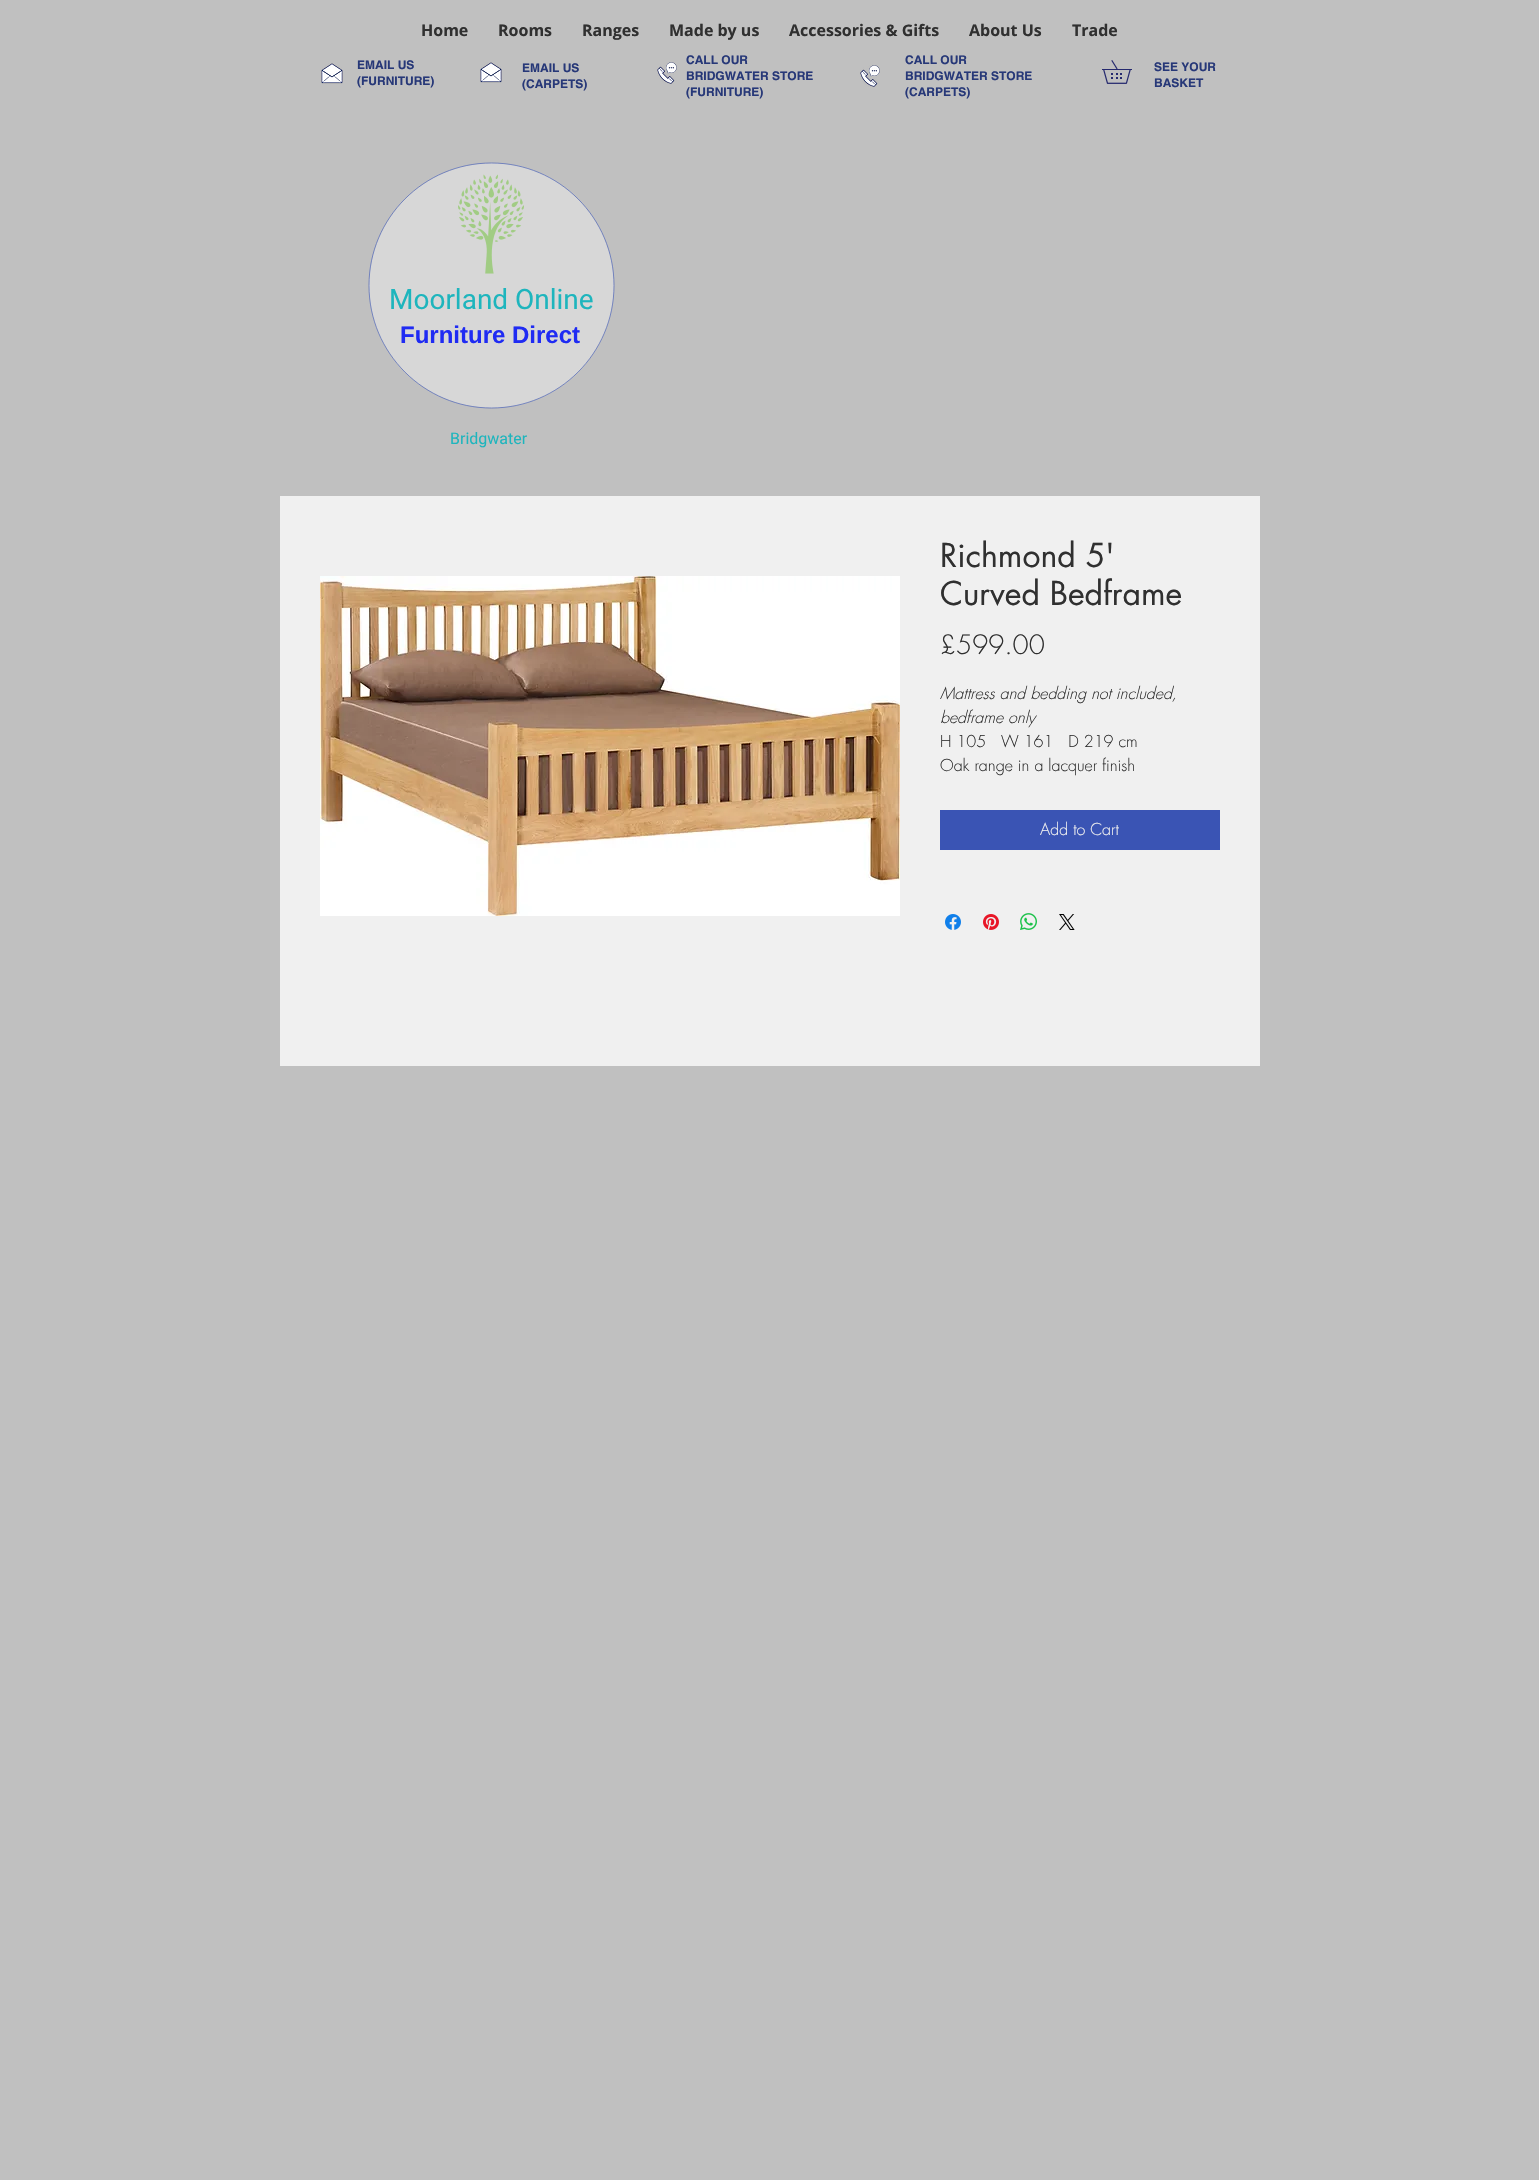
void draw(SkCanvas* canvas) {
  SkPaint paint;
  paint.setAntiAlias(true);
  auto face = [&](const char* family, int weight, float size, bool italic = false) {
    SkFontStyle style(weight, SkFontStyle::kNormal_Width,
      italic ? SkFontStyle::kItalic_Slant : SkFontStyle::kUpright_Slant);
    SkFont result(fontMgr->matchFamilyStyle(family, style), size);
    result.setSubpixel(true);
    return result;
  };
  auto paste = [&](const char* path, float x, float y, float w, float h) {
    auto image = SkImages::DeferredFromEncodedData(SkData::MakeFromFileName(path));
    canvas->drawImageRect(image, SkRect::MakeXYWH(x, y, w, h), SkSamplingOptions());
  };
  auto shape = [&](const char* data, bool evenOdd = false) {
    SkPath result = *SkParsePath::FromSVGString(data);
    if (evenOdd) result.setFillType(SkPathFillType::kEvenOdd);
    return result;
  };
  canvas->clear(0xffc0c0c0);
  paste("img/1.png", 321, 63, 22, 21);
  paste("img/1.png", 480, 62, 22, 21);
  paste("img/2.png", 657, 62, 20, 22);
  paste("img/2.png", 860, 65, 20, 22);
  paste("img/3.png", 1102, 60, 30, 24);
  paint.setColor(0xffd7d7d7);
  canvas->drawPath(shape("M614 286C614 353 559 408 492 408C424 408 369 353 369 286C369 218 424 163 492 163C559 163 614 218 614 286Z"), paint);
  paint.setStroke(true);
  paint.setStrokeWidth(1);
  paint.setColor(0x9c3a54b4);
  canvas->drawPath(shape("M614 285.5C614 353 559 408 491.5 408C424 408 369 353 369 285.5C369 218 424 163 491.5 163C559 163 614 218 614 285.5Z"), paint);
  paste("img/4.png", 458, 174, 66, 100);
  paint.setStroke(false);
  paint.setColor(0xfff0f0f0);
  canvas->drawRect(SkRect::MakeXYWH(280, 496, 980, 570), paint);
  paste("img/5.png", 320, 576, 580, 340);
  paint.setColor(0xff3a54b4);
  canvas->drawRect(SkRect::MakeXYWH(940, 810, 280, 40), paint);
  paste("img/6.png", 945, 914, 16, 16);
  paste("img/7.png", 983, 914, 16, 16);
  paste("img/8.png", 1020, 913, 17, 17);
  paste("img/9.png", 1059, 914, 16, 16);
  auto f0 = face("Open Sans", 700, 16);
  paint.setColor(0xff303030);
  {
    const struct { const char* s; float x, y; } items[] = {
      {"Home", 421, 36},
      {"Rooms", 498, 36},
      {"Ranges", 582, 36},
      {"Made by us", 669, 36},
      {"Accessories & Gifts", 789, 36},
      {"About Us", 969, 36},
      {"Trade", 1072, 36},
    };
    for (auto [s, x, y] : items) {
      canvas->drawString(s, x, y, f0, paint);
    }
  }
  auto f1 = face("helvetica", 700, 12);
  paint.setColor(0xff273878);
  {
    const struct { const char* s; float x, y; } items[] = {
      {"EMAIL US", 357, 69},
      {"(FURNITURE)", 357, 85},
      {"EMAIL US", 522, 72},
      {"(CARPETS)", 522, 88},
      {"CALL OUR", 686, 64},
      {"BRIDGWATER STORE", 686, 80},
      {"(FURNITURE)", 686, 96},
      {"CALL OUR", 905, 64},
      {"BRIDGWATER STORE", 905, 80},
      {"(CARPETS)", 905, 96},
      {"SEE YOUR", 1154, 71},
      {"BASKET", 1154, 87},
    };
    for (auto [s, x, y] : items) {
      canvas->drawString(s, x, y, f1, paint);
    }
  }
  auto f2 = face("Roboto", 400, 28);
  paint.setColor(0xff1eb5bd);
  canvas->drawString("Moorland Online", 389, 309, f2, paint);
  auto f3 = face("Liberation Sans", 700, 24);
  paint.setColor(0xff1f2bf3);
  canvas->drawString("Furniture Direct", 400, 343, f3, paint);
  auto f4 = face("Roboto", 400, 16);
  paint.setColor(0xff1eb5bd);
  canvas->drawString("Bridgwater", 450, 444, f4, paint);
  auto f5 = face("futura", 400, 32);
  paint.setColor(0xff303030);
  canvas->drawString("Richmond 5'", 940, 567, f5, paint);
  canvas->drawString("Curved Bedframe", 940, 605, f5, paint);
  auto f6 = face("futura", 300, 26);
  canvas->drawString("£599.00", 940, 654, f6, paint);
  auto f7 = face("futura", 300, 16, true);
  canvas->drawString("Mattress and bedding not included,", 940, 699, f7, paint);
  canvas->drawString("bedframe only", 940, 723, f7, paint);
  auto f8 = face("futura", 300, 16);
  canvas->drawString("H 105   W 161   D 219 cm", 940, 747, f8, paint);
  canvas->drawString("Oak range in a lacquer finish", 940, 771, f8, paint);
  paint.setColor(0xfff0f0f0);
  canvas->drawString("Add to Cart", 1040, 835, f8, paint);
}
